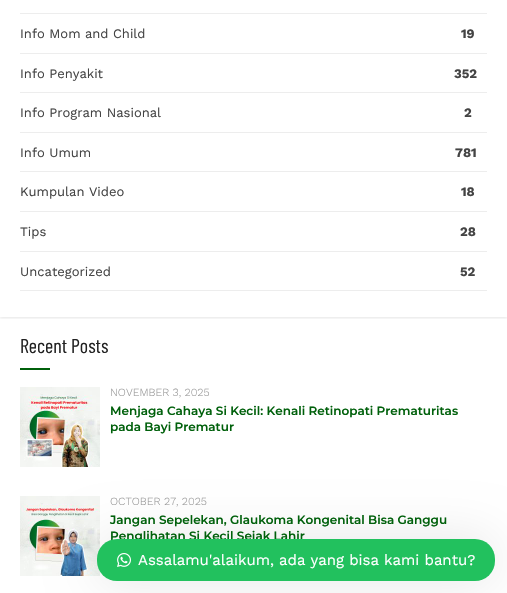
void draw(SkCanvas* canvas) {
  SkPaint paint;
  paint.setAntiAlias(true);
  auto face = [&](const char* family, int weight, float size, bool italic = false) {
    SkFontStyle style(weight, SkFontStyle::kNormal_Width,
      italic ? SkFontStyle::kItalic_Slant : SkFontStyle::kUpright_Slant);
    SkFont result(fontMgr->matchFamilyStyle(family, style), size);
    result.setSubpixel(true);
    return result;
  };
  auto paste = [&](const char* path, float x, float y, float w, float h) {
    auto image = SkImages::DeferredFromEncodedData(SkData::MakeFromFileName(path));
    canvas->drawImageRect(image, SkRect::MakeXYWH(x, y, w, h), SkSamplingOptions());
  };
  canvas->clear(0xffffffff);
  {
    const struct { float x, y, w, h; SkColor color; } items[] = {
      {20, 13, 467, 1, 0xffededed},
      {20, 53, 467, 1, 0xffededed},
      {20, 92, 467, 1, 0xffededed},
      {20, 132, 467, 1, 0xffededed},
      {20, 171, 467, 1, 0xffededed},
      {20, 211, 467, 1, 0xffededed},
      {20, 251, 467, 1, 0xffededed},
      {20, 290, 467, 1, 0xffededed},
    };
    for (auto [x, y, w, h, color] : items) {
      paint.setColor(color);
      canvas->drawRect(SkRect::MakeXYWH(x, y, w, h), paint);
    }
  }
  canvas->save();
  canvas->clipRect(SkRect::MakeXYWH(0, 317, 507, 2));
  paint.setColor(0x1a000000);
  paint.setMaskFilter(SkMaskFilter::MakeBlur(kNormal_SkBlurStyle, 1.5f));
  canvas->drawRect(SkRect::MakeXYWH(0, -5, 507, 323), paint);
  paint.setMaskFilter(nullptr);
  canvas->restore();
  paint.setColor(0xff00600b);
  canvas->drawRect(SkRect::MakeXYWH(20, 368, 30, 2), paint);
  paste("img/1.png", 20, 387, 80, 80);
  paste("img/2.png", 20, 496, 80, 80);
  paint.setColor(0x1a000000);
  paint.setMaskFilter(SkMaskFilter::MakeBlur(kNormal_SkBlurStyle, 25));
  canvas->drawRoundRect(SkRect::MakeXYWH(97, 539, 398, 42), 20, 20, paint);
  paint.setMaskFilter(nullptr);
  auto f0 = face("Work Sans", 400, 13);
  paint.setColor(0xff444444);
  canvas->drawString("Info Mom and Child", 20, 38, f0, paint);
  auto f1 = face("Work Sans", 700, 13);
  canvas->drawString("19", 461, 38, f1, paint);
  canvas->drawString("Info Penyakit", 20, 78, f0, paint);
  canvas->drawString("352", 454, 78, f1, paint);
  canvas->drawString("Info Program Nasional", 20, 117, f0, paint);
  canvas->drawString("2", 464, 117, f1, paint);
  canvas->drawString("Info Umum", 20, 157, f0, paint);
  canvas->drawString("781", 455, 157, f1, paint);
  canvas->drawString("Kumpulan Video", 20, 196, f0, paint);
  canvas->drawString("18", 461, 196, f1, paint);
  canvas->drawString("Tips", 20, 236, f0, paint);
  canvas->drawString("28", 460, 236, f1, paint);
  canvas->drawString("Uncategorized", 20, 276, f0, paint);
  canvas->drawString("52", 460, 276, f1, paint);
  auto f2 = face("Barlow Condensed", 400, 20);
  paint.setColor(0xff222222);
  canvas->drawString("Recent Posts", 20, 353, f2, paint);
  auto f3 = face("Work Sans", 300, 11);
  paint.setColor(0xff989898);
  canvas->drawString("NOVEMBER 3, 2025", 110, 396, f3, paint);
  auto f4 = face("Montserrat", 600, 12);
  paint.setColor(0xff00600b);
  canvas->drawString("Menjaga Cahaya Si Kecil: Kenali Retinopati Prematuritas", 110, 415, f4, paint);
  canvas->drawString("pada Bayi Prematur", 110, 431, f4, paint);
  paint.setColor(0xff989898);
  canvas->drawString("OCTOBER 27, 2025", 110, 505, f3, paint);
  paint.setColor(0xff00600b);
  canvas->drawString("Jangan Sepelekan, Glaukoma Kongenital Bisa Ganggu", 110, 524, f4, paint);
  canvas->drawString("Penglihatan Si Kecil Sejak Lahir", 110, 540, f4, paint);
  paint.setColor(0xff22c15e);
  canvas->drawRoundRect(SkRect::MakeXYWH(97, 539, 398, 42), 20, 20, paint);
  paste("img/3.png", 117, 553, 14, 14);
  auto f5 = face("Work Sans", 400, 15);
  paint.setColor(0xffffffff);
  canvas->drawString("Assalamu'alaikum, ada yang bisa kami bantu?", 138, 565, f5, paint);
}
